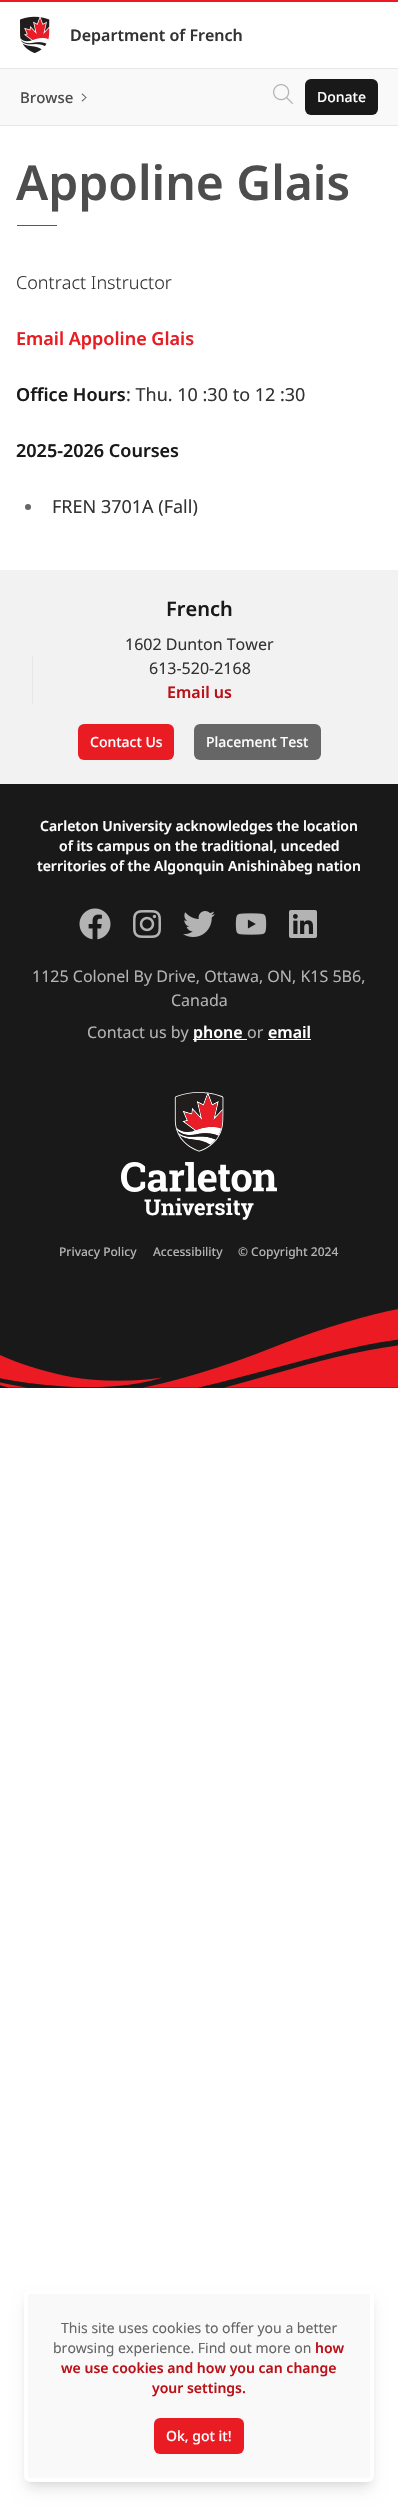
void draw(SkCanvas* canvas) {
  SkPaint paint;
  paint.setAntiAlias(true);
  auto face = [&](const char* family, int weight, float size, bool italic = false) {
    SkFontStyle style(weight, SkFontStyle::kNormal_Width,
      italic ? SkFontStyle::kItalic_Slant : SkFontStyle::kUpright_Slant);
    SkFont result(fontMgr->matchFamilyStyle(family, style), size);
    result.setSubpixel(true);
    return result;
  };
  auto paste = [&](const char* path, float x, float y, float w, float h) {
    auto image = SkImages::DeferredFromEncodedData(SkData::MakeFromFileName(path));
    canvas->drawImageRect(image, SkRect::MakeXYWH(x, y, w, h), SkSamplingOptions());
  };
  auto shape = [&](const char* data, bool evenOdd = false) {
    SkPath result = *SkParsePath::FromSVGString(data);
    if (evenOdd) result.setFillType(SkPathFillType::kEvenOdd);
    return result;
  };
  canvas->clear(0xffffffff);
  paint.setColor(0xffe91c24);
  canvas->drawRect(SkRect::MakeXYWH(0, 0, 398, 2), paint);
  paint.setColor(0xffe6e6e6);
  canvas->drawRect(SkRect::MakeXYWH(0, 125, 398, 1), paint);
  paste("img/1.png", 20, 16, 30, 37);
  paint.setColor(0xfff9f9f9);
  canvas->drawRect(SkRect::MakeXYWH(0, 69, 398, 56), paint);
  paint.setColor(0xffe6e6e6);
  canvas->drawRect(SkRect::MakeXYWH(0, 68, 398, 1), paint);
  paint.setColor(0xff4d4d4d);
  canvas->drawPath(shape("M86.5 97.5L82.5 101.5L81.5 101L86 97Z"), paint);
  canvas->drawPath(shape("M86.5 97.5L86 98L81.5 94L82.5 93.5Z"), paint);
  paste("img/2.png", 273, 84, 20, 20);
  paint.setColor(0xff191919);
  canvas->drawRoundRect(SkRect::MakeXYWH(305, 79, 73, 36), 6, 6, paint);
  paint.setColor(0xffe91c24);
  canvas->drawRect(SkRect::MakeXYWH(17, 225, 40, 1), paint);
  paint.setColor(0xff666666);
  canvas->drawCircle(28, 507, 3, paint);
  paint.setColor(0xfff2f2f2);
  canvas->drawRect(SkRect::MakeXYWH(0, 570, 398, 214), paint);
  paint.setColor(0xffe5e7eb);
  canvas->drawRect(SkRect::MakeXYWH(32, 656, 1, 48), paint);
  paint.setColor(0xffe91c24);
  canvas->drawRoundRect(SkRect::MakeXYWH(78, 724, 96, 36), 6, 6, paint);
  paint.setColor(0xff666666);
  canvas->drawRoundRect(SkRect::MakeXYWH(194, 724, 127, 36), 6, 6, paint);
  paint.setColor(0xff191919);
  canvas->drawRect(SkRect::MakeXYWH(0, 784, 398, 604), paint);
  paste("img/3.png", 0, 1309, 398, 79);
  paste("img/4.png", 79, 908, 32, 32);
  paste("img/5.png", 133, 910, 28, 28);
  paste("img/6.png", 183, 911, 32, 26);
  paste("img/7.png", 235, 913, 32, 22);
  paste("img/8.png", 289, 910, 28, 28);
  paint.setColor(0xffffffff);
  canvas->drawRect(SkRect::MakeXYWH(193, 1039, 54, 1), paint);
  canvas->drawRect(SkRect::MakeXYWH(268, 1039, 43, 1), paint);
  paste("img/9.png", 121, 1092, 156, 128);
  paint.setColor(0x1a000000);
  paint.setMaskFilter(SkMaskFilter::MakeBlur(kNormal_SkBlurStyle, 3));
  canvas->drawRoundRect(SkRect::MakeXYWH(28, 2298, 342, 184), 2, 2, paint);
  paint.setMaskFilter(nullptr);
  paint.setMaskFilter(SkMaskFilter::MakeBlur(kNormal_SkBlurStyle, 7.5f));
  canvas->drawRoundRect(SkRect::MakeXYWH(27, 2303, 344, 186), 3, 3, paint);
  paint.setMaskFilter(nullptr);
  paint.setColor(0xfff9f9f9);
  canvas->drawRoundRect(SkRect::MakeXYWH(26, 2292, 346, 188), 4, 4, paint);
  paint.setStroke(true);
  paint.setStrokeWidth(4);
  paint.setColor(0xffffffff);
  canvas->drawRoundRect(SkRect::MakeXYWH(26, 2292, 346, 188), 4, 4, paint);
  paint.setStroke(false);
  paint.setColor(0xffe91c24);
  canvas->drawRoundRect(SkRect::MakeXYWH(154, 2418, 90, 36), 6, 6, paint);
  auto f0 = face("Noto Sans", 600, 16);
  paint.setColor(0xff333333);
  canvas->drawString("Department of French", 70, 41, f0, paint);
  auto f1 = face("Noto Sans", 500, 15);
  paint.setColor(0xff4d4d4d);
  canvas->drawString("Browse", 20, 103, f1, paint);
  auto f2 = face("Noto Sans", 500, 14);
  paint.setColor(0xffffffff);
  canvas->drawString("Donate", 317, 102, f2, paint);
  auto f3 = face("Noto Sans", 600, 48);
  paint.setColor(0xff4d4d4d);
  canvas->drawString("Appoline Glais", 16, 200, f3, paint);
  auto f4 = face("Noto Sans", 300, 18);
  paint.setColor(0xff333333);
  canvas->drawString("Contract Instructor", 16, 289, f4, paint);
  auto f5 = face("Noto Sans", 600, 18);
  paint.setColor(0xffe91c24);
  canvas->drawString("Email Appoline Glais", 16, 345, f5, paint);
  paint.setColor(0xff191919);
  canvas->drawString("Office Hours", 16, 401, f5, paint);
  auto f6 = face("Noto Sans", 400, 18);
  paint.setColor(0xff333333);
  canvas->drawString(": Thu. 10 :30 to 12 :30", 126, 401, f6, paint);
  paint.setColor(0xff191919);
  canvas->drawString("2025-2026 Courses", 16, 457, f5, paint);
  paint.setColor(0xff333333);
  canvas->drawString("FREN 3701A (Fall)", 52, 513, f6, paint);
  auto f7 = face("Noto Sans", 600, 20);
  paint.setColor(0xff191919);
  canvas->drawString("French", 166, 616, f7, paint);
  auto f8 = face("Noto Sans", 400, 16);
  paint.setColor(0xff333333);
  canvas->drawString("1602 Dunton Tower", 125, 650, f8, paint);
  canvas->drawString("613-520-2168", 149, 674, f8, paint);
  paint.setColor(0xffbb1219);
  canvas->drawString("Email us", 167, 698, f0, paint);
  paint.setColor(0xffffffff);
  canvas->drawString("Contact Us", 90, 747, f2, paint);
  canvas->drawString("Placement Test", 206, 747, f2, paint);
  auto f9 = face("Noto Sans", 600, 14);
  {
    const struct { const char* s; float x, y; } items[] = {
      {"Carleton University acknowledges the location", 40, 831},
      {"of its campus on the traditional, unceded", 59, 851},
      {"territories of the Algonquin Anishinàbeg nation", 37, 871},
    };
    for (auto [s, x, y] : items) {
      canvas->drawString(s, x, y, f9, paint);
    }
  }
  paint.setColor(0xffb3b3b3);
  {
    const struct { const char* s; float x, y; } items[] = {
      {"1125 Colonel By Drive, Ottawa, ON, K1S 5B6,", 32, 982},
      {"Canada", 171, 1006},
      {"Contact us by", 87, 1038},
    };
    for (auto [s, x, y] : items) {
      canvas->drawString(s, x, y, f8, paint);
    }
  }
  paint.setColor(0xffffffff);
  canvas->drawString("phone", 193, 1038, f0, paint);
  paint.setColor(0xffb3b3b3);
  canvas->drawString("or", 247, 1038, f8, paint);
  paint.setColor(0xffffffff);
  canvas->drawString("email", 268, 1038, f0, paint);
  auto f10 = face("Noto Sans", 500, 12);
  paint.setColor(0xffb3b3b3);
  {
    const struct { const char* s; float x, y; } items[] = {
      {"Privacy Policy", 59, 1256},
      {"Accessibility", 153, 1256},
      {"© Copyright 2024", 238, 1256},
    };
    for (auto [s, x, y] : items) {
      canvas->drawString(s, x, y, f10, paint);
    }
  }
  auto f11 = face("Noto Sans", 400, 14);
  paint.setColor(0xff666666);
  canvas->drawString("This site uses cookies to offer you a better", 61, 2333, f11, paint);
  canvas->drawString("browsing experience. Find out more on", 53, 2353, f11, paint);
  paint.setColor(0xffbb1219);
  {
    const struct { const char* s; float x, y; } items[] = {
      {"how", 315, 2353},
      {"we use cookies and how you can change", 61, 2373},
      {"your settings.", 152, 2393},
    };
    for (auto [s, x, y] : items) {
      canvas->drawString(s, x, y, f9, paint);
    }
  }
  paint.setColor(0xffffffff);
  canvas->drawString("Ok, got it!", 166, 2441, f2, paint);
}
